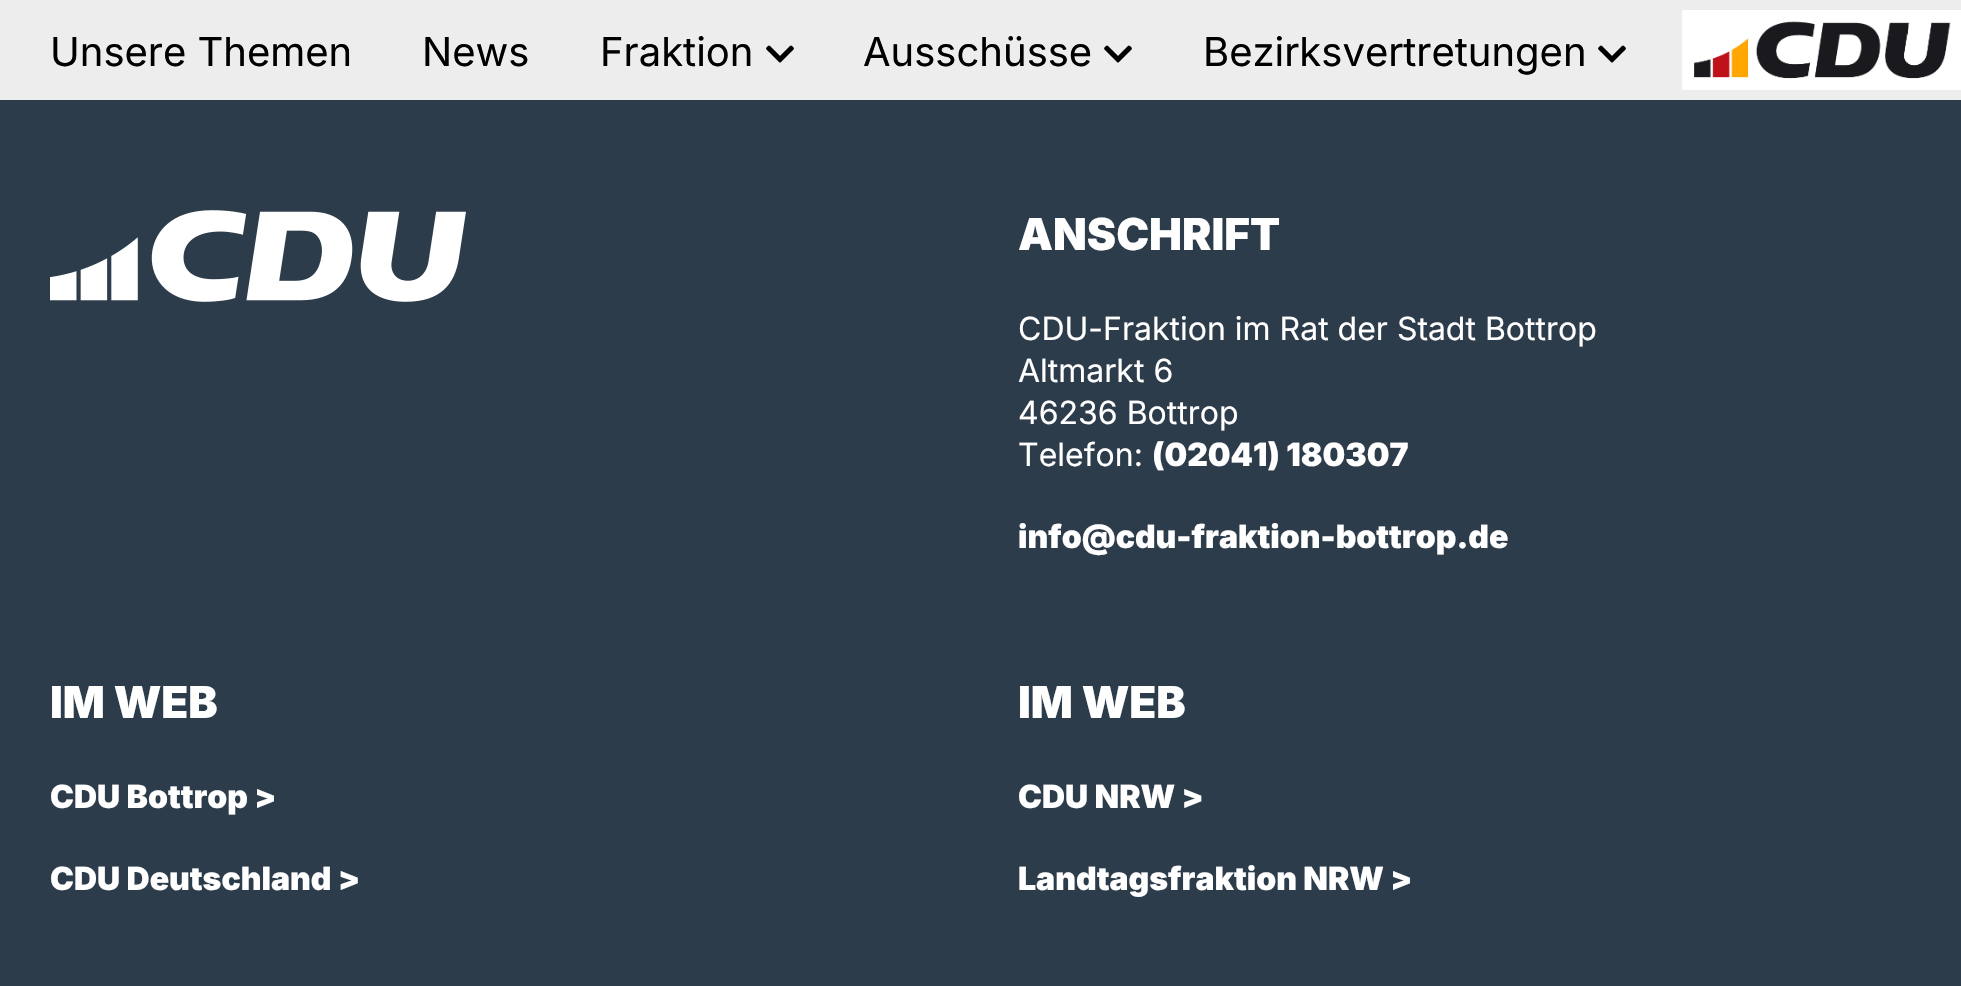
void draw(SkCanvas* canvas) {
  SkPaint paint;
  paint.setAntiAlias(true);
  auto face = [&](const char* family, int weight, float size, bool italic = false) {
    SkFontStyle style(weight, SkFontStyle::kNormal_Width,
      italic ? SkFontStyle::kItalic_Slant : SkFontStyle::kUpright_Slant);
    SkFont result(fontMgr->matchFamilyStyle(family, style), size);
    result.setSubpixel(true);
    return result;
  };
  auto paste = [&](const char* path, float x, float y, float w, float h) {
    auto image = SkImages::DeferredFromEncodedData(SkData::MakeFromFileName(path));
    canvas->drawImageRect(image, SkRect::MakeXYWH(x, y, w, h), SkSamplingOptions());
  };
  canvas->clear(0xff2d3c4b);
  paint.setColor(0xffededed);
  canvas->drawRect(SkRect::MakeXYWH(0, 0, 1961, 100), paint);
  paste("img/1.png", 766, 45, 28, 18);
  paste("img/1.png", 1104, 45, 28, 18);
  paste("img/1.png", 1598, 45, 28, 18);
  paste("img/2.png", 1682, 10, 279, 80);
  paste("img/3.png", 50, 210, 416, 92);
  auto f0 = face("Inter", 400, 40);
  paint.setColor(0xff000000);
  {
    const struct { const char* s; float x, y; } items[] = {
      {"Unsere Themen", 50, 66},
      {"News", 422, 66},
      {"Fraktion", 600, 66},
      {"Ausschüsse", 863, 66},
      {"Bezirksvertretungen", 1203, 66},
    };
    for (auto [s, x, y] : items) {
      canvas->drawString(s, x, y, f0, paint);
    }
  }
  auto f1 = face("Inter", 900, 44);
  paint.setColor(0xffffffff);
  canvas->drawString("ANSCHRIFT", 1018, 250, f1, paint);
  auto f2 = face("Inter", 400, 32);
  {
    const struct { const char* s; float x, y; } items[] = {
      {"CDU-Fraktion im Rat der Stadt Bottrop", 1018, 340},
      {"Altmarkt 6", 1018, 382},
      {"46236 Bottrop", 1018, 424},
      {"Telefon:", 1018, 466},
    };
    for (auto [s, x, y] : items) {
      canvas->drawString(s, x, y, f2, paint);
    }
  }
  auto f3 = face("Inter", 900, 32);
  canvas->drawString("(02041) 180307", 1152, 466, f3, paint);
  canvas->drawString("info@cdu-fraktion-bottrop.de", 1018, 548, f3, paint);
  canvas->drawString("IM WEB", 50, 718, f1, paint);
  canvas->drawString("CDU Bottrop >", 50, 808, f3, paint);
  canvas->drawString("CDU Deutschland >", 50, 890, f3, paint);
  canvas->drawString("IM WEB", 1018, 718, f1, paint);
  canvas->drawString("CDU NRW >", 1018, 808, f3, paint);
  canvas->drawString("Landtagsfraktion NRW >", 1018, 890, f3, paint);
}
